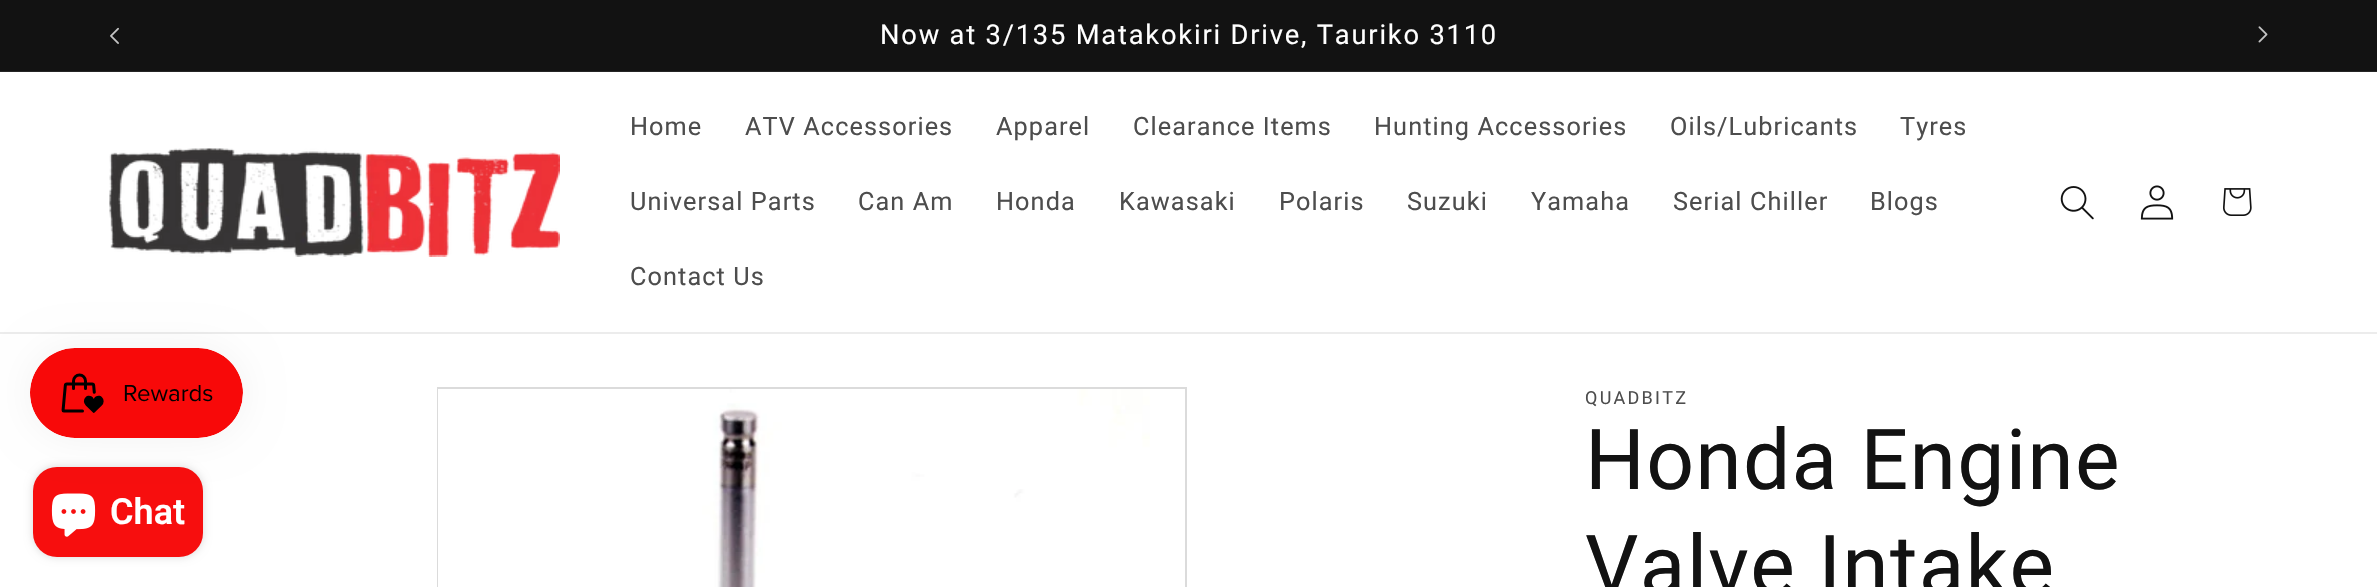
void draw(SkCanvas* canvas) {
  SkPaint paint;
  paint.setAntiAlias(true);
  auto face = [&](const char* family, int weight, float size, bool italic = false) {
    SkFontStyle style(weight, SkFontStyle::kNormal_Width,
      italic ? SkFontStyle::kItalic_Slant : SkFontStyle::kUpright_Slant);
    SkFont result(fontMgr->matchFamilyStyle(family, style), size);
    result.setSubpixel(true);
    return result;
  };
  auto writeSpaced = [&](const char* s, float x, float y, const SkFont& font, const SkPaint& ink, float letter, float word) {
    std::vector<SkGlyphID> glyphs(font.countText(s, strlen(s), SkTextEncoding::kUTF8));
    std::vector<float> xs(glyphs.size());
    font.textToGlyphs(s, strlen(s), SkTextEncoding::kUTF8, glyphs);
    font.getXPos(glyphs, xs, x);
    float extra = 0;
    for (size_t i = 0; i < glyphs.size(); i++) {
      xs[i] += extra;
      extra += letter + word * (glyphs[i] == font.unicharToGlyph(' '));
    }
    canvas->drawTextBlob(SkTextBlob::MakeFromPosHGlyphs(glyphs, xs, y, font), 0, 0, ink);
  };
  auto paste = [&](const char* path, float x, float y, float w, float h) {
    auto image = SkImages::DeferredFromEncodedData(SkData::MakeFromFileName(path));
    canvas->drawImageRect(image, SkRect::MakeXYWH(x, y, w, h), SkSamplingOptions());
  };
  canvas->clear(0xffffffff);
  paint.setColor(0xff121212);
  canvas->drawRect(SkRect::MakeXYWH(0, 0, 2377, 71), paint);
  paint.setColor(0xff252525);
  canvas->drawRect(SkRect::MakeXYWH(0, 71, 2377, 1), paint);
  paste("img/1.png", 110, 27, 9, 17);
  paste("img/2.png", 2258, 26, 10, 17);
  paint.setColor(0xffececec);
  canvas->drawRect(SkRect::MakeXYWH(0, 332, 2377, 2), paint);
  paste("img/3.png", 109, 148, 451, 109);
  paste("img/4.png", 2060, 186, 34, 34);
  paste("img/5.png", 2140, 185, 34, 35);
  paste("img/6.png", 2223, 188, 29, 28);
  paint.setColor(0x26000000);
  paint.setMaskFilter(SkMaskFilter::MakeBlur(kNormal_SkBlurStyle, 4));
  canvas->drawRoundRect(SkRect::MakeXYWH(33, 467, 170, 90), 24, 24, paint);
  paint.setMaskFilter(nullptr);
  paint.setColor(0xfff70e0e);
  canvas->drawRoundRect(SkRect::MakeXYWH(33, 467, 170, 90), 24, 24, paint);
  paste("img/9.png", 51, 493, 45, 44);
  paint.setColor(0x0d000000);
  paint.setMaskFilter(SkMaskFilter::MakeBlur(kNormal_SkBlurStyle, 19));
  canvas->drawRoundRect(SkRect::MakeXYWH(30, 348, 213, 90), 45, 45, paint);
  paint.setMaskFilter(nullptr);
  paste("img/7.png", 30, 348, 213, 90);
  paint.setStroke(true);
  paint.setStrokeWidth(2);
  paint.setColor(0xffdbdbdb);
  canvas->drawRect(SkRect::MakeXYWH(438, 388, 748, 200), paint);
  paste("img/8.png", 438, 389, 712, 198);
  auto f0 = face("Roboto", 400, 27.3f);
  paint.setStroke(false);
  paint.setColor(0xffffffff);
  writeSpaced("Now at 3/135 Matakokiri Drive, Tauriko 3110", 880, 44, f0, paint, 1.8f, 0);
  auto f1 = face("Roboto", 400, 25.25f);
  paint.setColor(0xff4d4d4d);
  {
    const struct { const char* s; float x, y; } items[] = {
      {"Home", 630, 135},
      {"ATV Accessories", 745, 135},
      {"Apparel", 996, 135},
      {"Clearance Items", 1133, 135},
      {"Hunting Accessories", 1374, 135},
      {"Oils/Lubricants", 1670, 135},
      {"Tyres", 1900, 135},
      {"Universal Parts", 630, 210},
      {"Can Am", 858, 210},
      {"Honda", 996, 210},
      {"Kawasaki", 1119, 210},
      {"Polaris", 1279, 210},
      {"Suzuki", 1407, 210},
      {"Yamaha", 1531, 210},
      {"Serial Chiller", 1673, 210},
      {"Blogs", 1870, 210},
      {"Contact Us", 630, 285},
    };
    for (auto [s, x, y] : items) {
      writeSpaced(s, x, y, f1, paint, 1.1f, 0);
    }
  }
  auto f2 = face("Roboto", 400, 18);
  writeSpaced("QUADBITZ", 1585, 404, f2, paint, 2.25f, 0);
  auto f3 = face("Roboto", 400, 84);
  paint.setColor(0xff121212);
  writeSpaced("Honda Engine", 1585, 489, f3, paint, 1.25f, 0);
  writeSpaced("Valve Intake", 1585, 595, f3, paint, 1.25f, 0);
  auto f4 = face("Roboto", 600, 36);
  paint.setColor(0xffffffff);
  canvas->drawString("Chat", 110, 524, f4, paint);
}
